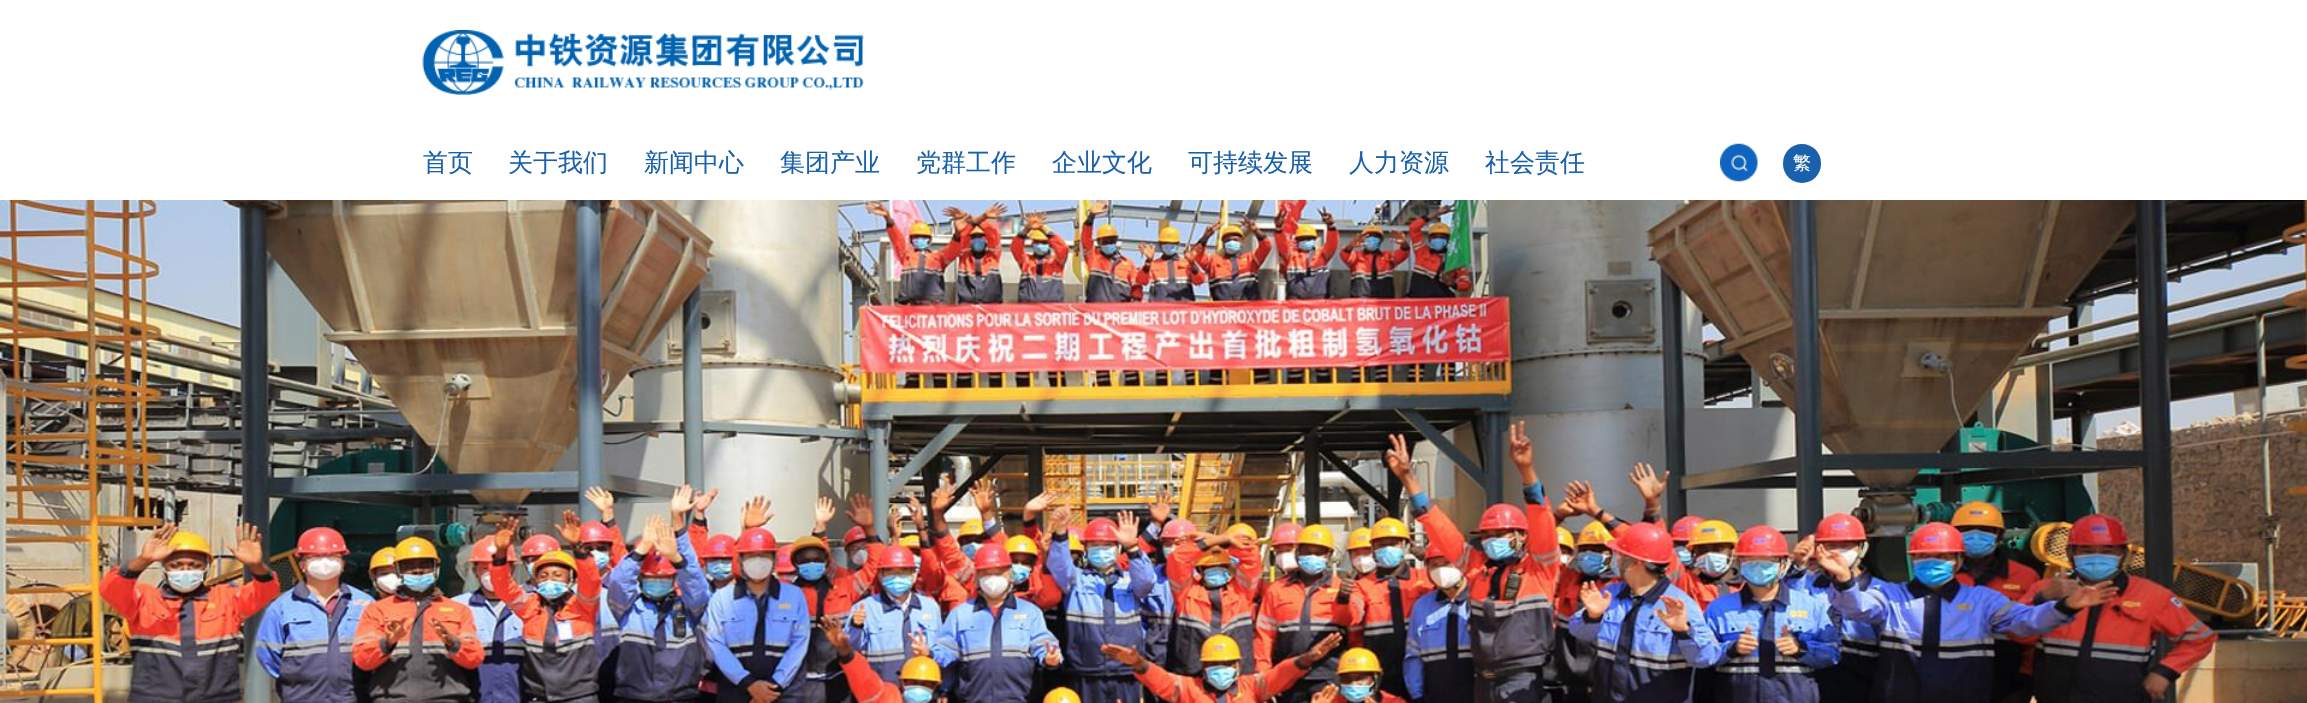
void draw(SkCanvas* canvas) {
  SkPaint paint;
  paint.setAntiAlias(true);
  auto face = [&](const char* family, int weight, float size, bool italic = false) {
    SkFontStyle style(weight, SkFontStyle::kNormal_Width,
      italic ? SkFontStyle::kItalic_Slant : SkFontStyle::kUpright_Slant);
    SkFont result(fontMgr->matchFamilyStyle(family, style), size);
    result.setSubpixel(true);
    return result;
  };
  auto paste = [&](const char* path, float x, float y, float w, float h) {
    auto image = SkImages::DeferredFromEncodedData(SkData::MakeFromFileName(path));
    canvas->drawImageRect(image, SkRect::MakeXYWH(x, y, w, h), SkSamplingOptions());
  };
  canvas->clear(0xffffffff);
  paste("img/1.png", 422, 30, 442, 65);
  paste("img/2.png", 1720, 143, 38, 39);
  paint.setColor(0xff1961ac);
  canvas->drawRoundRect(SkRect::MakeXYWH(1783, 144, 38, 39), 19, 19, paint);
  paste("img/3.png", 0, 200, 2307, 503);
  auto f0 = face("WenQuanYi Zen Hei", 500, 25);
  {
    const struct { const char* s; float x, y; } items[] = {
      {"首页", 423, 171},
      {"关于我们", 508, 171},
      {"新闻中心", 644, 171},
      {"集团产业", 780, 171},
      {"党群工作", 916, 171},
      {"企业文化", 1052, 171},
      {"可持续发展", 1188, 171},
      {"人力资源", 1349, 171},
      {"社会责任", 1485, 171},
    };
    for (auto [s, x, y] : items) {
      canvas->drawString(s, x, y, f0, paint);
    }
  }
  auto f1 = face("WenQuanYi Zen Hei", 500, 18);
  paint.setColor(0xffffffff);
  canvas->drawString("繁", 1793, 169, f1, paint);
}
